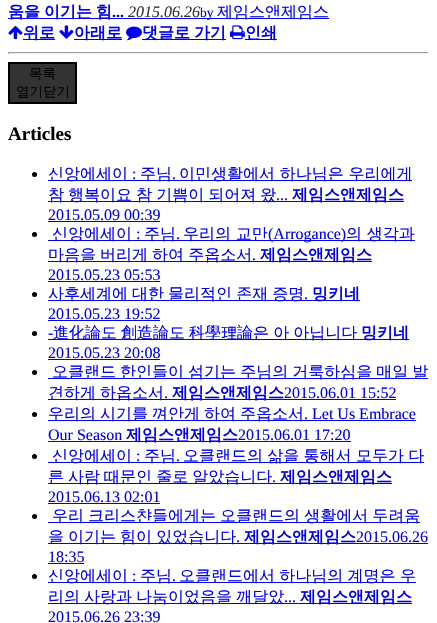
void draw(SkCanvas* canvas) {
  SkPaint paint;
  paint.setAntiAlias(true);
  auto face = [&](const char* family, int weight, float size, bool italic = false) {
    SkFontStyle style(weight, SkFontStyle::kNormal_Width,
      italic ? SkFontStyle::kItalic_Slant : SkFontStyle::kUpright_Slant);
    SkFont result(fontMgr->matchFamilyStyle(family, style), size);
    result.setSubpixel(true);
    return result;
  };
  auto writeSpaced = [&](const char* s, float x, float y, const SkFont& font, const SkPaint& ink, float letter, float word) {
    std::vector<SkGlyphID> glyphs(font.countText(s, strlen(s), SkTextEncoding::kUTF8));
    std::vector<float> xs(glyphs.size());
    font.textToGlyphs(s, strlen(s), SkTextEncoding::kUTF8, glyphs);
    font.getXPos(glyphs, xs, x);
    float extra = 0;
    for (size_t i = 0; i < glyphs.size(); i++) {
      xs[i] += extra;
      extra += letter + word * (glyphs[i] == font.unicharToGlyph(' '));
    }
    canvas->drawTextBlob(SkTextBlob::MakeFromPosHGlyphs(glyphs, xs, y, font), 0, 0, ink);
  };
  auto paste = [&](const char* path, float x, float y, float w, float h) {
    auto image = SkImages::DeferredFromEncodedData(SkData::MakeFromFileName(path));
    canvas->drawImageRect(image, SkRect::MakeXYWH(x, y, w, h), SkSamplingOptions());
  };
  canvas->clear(0xffffffff);
  paint.setColor(0xff0000ee);
  canvas->drawRect(SkRect::MakeXYWH(8, 18, 321, 1), paint);
  paste("img/1.png", 8, 26, 15, 14);
  canvas->drawRect(SkRect::MakeXYWH(23, 39, 32, 1), paint);
  paste("img/2.png", 59, 25, 15, 14);
  canvas->drawRect(SkRect::MakeXYWH(74, 39, 48, 1), paint);
  paste("img/3.png", 126, 26, 16, 15);
  canvas->drawRect(SkRect::MakeXYWH(142, 39, 84, 1), paint);
  paste("img/4.png", 230, 25, 15, 15);
  {
    const struct { float x, y, w, h; SkColor color; } items[] = {
      {245, 39, 32, 1, 0xff0000ee},
      {8, 52, 421, 1, 0xff9f9f9f},
      {428, 52, 1, 2, 0xffeeeeee},
      {8, 53, 421, 1, 0xffeeeeee},
      {8, 52, 1, 2, 0xff9f9f9f},
    };
    for (auto [x, y, w, h, color] : items) {
      paint.setColor(color);
      canvas->drawRect(SkRect::MakeXYWH(x, y, w, h), paint);
    }
  }
  paint.setColor(0xff333333);
  canvas->drawRect(SkRect::MakeXYWH(9, 63, 67, 40), paint);
  paint.setStroke(true);
  paint.setStrokeWidth(2);
  paint.setColor(0xff000000);
  canvas->drawRect(SkRect::MakeXYWH(9, 63, 67, 40), paint);
  paint.setStroke(false);
  canvas->drawCircle(34.5f, 174.5f, 2.5f, paint);
  {
    const struct { float x, y, w, h; SkColor color; } items[] = {
      {48, 180, 364, 1, 0xff0000ee},
      {48, 201, 356, 1, 0xff0000ee},
      {48, 221, 112, 1, 0xff0000ee},
    };
    for (auto [x, y, w, h, color] : items) {
      paint.setColor(color);
      canvas->drawRect(SkRect::MakeXYWH(x, y, w, h), paint);
    }
  }
  paint.setColor(0xff000000);
  canvas->drawCircle(34.5f, 234.5f, 2.5f, paint);
  {
    const struct { float x, y, w, h; SkColor color; } items[] = {
      {48, 240, 367, 1, 0xff0000ee},
      {48, 261, 324, 1, 0xff0000ee},
      {48, 281, 112, 1, 0xff0000ee},
    };
    for (auto [x, y, w, h, color] : items) {
      paint.setColor(color);
      canvas->drawRect(SkRect::MakeXYWH(x, y, w, h), paint);
    }
  }
  paint.setColor(0xff000000);
  canvas->drawCircle(34.5f, 294.5f, 2.5f, paint);
  paint.setColor(0xff0000ee);
  canvas->drawRect(SkRect::MakeXYWH(48, 300, 312, 1), paint);
  canvas->drawRect(SkRect::MakeXYWH(48, 320, 112, 1), paint);
  paint.setColor(0xff000000);
  canvas->drawCircle(34.5f, 333.5f, 2.5f, paint);
  paint.setColor(0xff0000ee);
  canvas->drawRect(SkRect::MakeXYWH(48, 339, 361, 1), paint);
  canvas->drawRect(SkRect::MakeXYWH(48, 359, 112, 1), paint);
  paint.setColor(0xff000000);
  canvas->drawCircle(34.5f, 372.5f, 2.5f, paint);
  paint.setColor(0xff0000ee);
  canvas->drawRect(SkRect::MakeXYWH(48, 378, 380, 1), paint);
  canvas->drawRect(SkRect::MakeXYWH(48, 399, 348, 1), paint);
  paint.setColor(0xff000000);
  canvas->drawCircle(34.5f, 414.5f, 2.5f, paint);
  paint.setColor(0xff0000ee);
  canvas->drawRect(SkRect::MakeXYWH(48, 420, 368, 1), paint);
  canvas->drawRect(SkRect::MakeXYWH(48, 441, 303, 1), paint);
  paint.setColor(0xff000000);
  canvas->drawCircle(34.5f, 456.5f, 2.5f, paint);
  {
    const struct { float x, y, w, h; SkColor color; } items[] = {
      {48, 462, 376, 1, 0xff0000ee},
      {48, 483, 344, 1, 0xff0000ee},
      {48, 503, 112, 1, 0xff0000ee},
    };
    for (auto [x, y, w, h, color] : items) {
      paint.setColor(color);
      canvas->drawRect(SkRect::MakeXYWH(x, y, w, h), paint);
    }
  }
  paint.setColor(0xff000000);
  canvas->drawCircle(34.5f, 516.5f, 2.5f, paint);
  {
    const struct { float x, y, w, h; SkColor color; } items[] = {
      {48, 522, 372, 1, 0xff0000ee},
      {48, 543, 380, 1, 0xff0000ee},
      {48, 563, 36, 1, 0xff0000ee},
    };
    for (auto [x, y, w, h, color] : items) {
      paint.setColor(color);
      canvas->drawRect(SkRect::MakeXYWH(x, y, w, h), paint);
    }
  }
  paint.setColor(0xff000000);
  canvas->drawCircle(34.5f, 576.5f, 2.5f, paint);
  paint.setColor(0xff0000ee);
  canvas->drawRect(SkRect::MakeXYWH(48, 582, 368, 1), paint);
  canvas->drawRect(SkRect::MakeXYWH(48, 603, 364, 1), paint);
  auto f0 = face("WenQuanYi Zen Hei", 700, 16);
  writeSpaced("움을 이기는 힘", 8, 17, f0, paint, 0, -0.75f);
  auto f1 = face("Liberation Serif", 700, 16);
  canvas->drawString("...", 112, 17, f1, paint);
  auto f2 = face("Liberation Serif", 400, 16, true);
  paint.setColor(0xff333333);
  canvas->drawString("2015.06.26", 128, 17, f2, paint);
  auto f3 = face("Liberation Serif", 400, 13.5f);
  paint.setColor(0xff0000ee);
  canvas->drawString("by", 200, 17, f3, paint);
  auto f4 = face("WenQuanYi Zen Hei", 500, 16);
  canvas->drawString("제임스앤제임스", 217, 17, f4, paint);
  canvas->drawString("위로", 23, 38, f0, paint);
  canvas->drawString("아래로", 74, 38, f0, paint);
  writeSpaced("댓글로 가기", 142, 38, f0, paint, 0, -0.75f);
  canvas->drawString("인쇄", 245, 38, f0, paint);
  auto f5 = face("WenQuanYi Zen Hei", 500, 13.5f);
  paint.setColor(0xff000000);
  canvas->drawString("목록", 29, 78, f5, paint);
  canvas->drawString("열기닫기", 16, 96, f5, paint);
  auto f6 = face("Liberation Serif", 700, 19);
  canvas->drawString("Articles", 8, 140, f6, paint);
  paint.setColor(0xff0000ee);
  canvas->drawString("신앙에세이", 48, 179, f4, paint);
  auto f7 = face("Liberation Serif", 400, 16);
  canvas->drawString(":", 132, 179, f7, paint);
  canvas->drawString("주님", 140, 179, f4, paint);
  canvas->drawString("이민생활에서 하나님은 우리에게", 179, 179, f4, paint);
  canvas->drawString(".", 172, 179, f7, paint);
  writeSpaced("참 행복이요 참 기쁨이 되어져 왔", 48, 200, f4, paint, 0, -0.75f);
  canvas->drawString("...", 276, 200, f7, paint);
  canvas->drawString("제임스앤제임스", 292, 200, f0, paint);
  canvas->drawString("2015.05.09 00:39", 48, 220, f7, paint);
  canvas->drawString("신앙에세이", 52, 239, f4, paint);
  canvas->drawString(":", 136, 239, f7, paint);
  canvas->drawString("주님", 144, 239, f4, paint);
  canvas->drawString("우리의 교만", 183, 239, f4, paint);
  canvas->drawString("(Arrogance)", 268, 239, f7, paint);
  canvas->drawString("의 생각과", 346, 239, f4, paint);
  canvas->drawString(".", 176, 239, f7, paint);
  writeSpaced("마음을 버리게 하여 주옵소서", 48, 260, f4, paint, 0, -0.75f);
  canvas->drawString(".", 252, 260, f7, paint);
  canvas->drawString("제임스앤제임스", 260, 260, f0, paint);
  canvas->drawString("2015.05.23 05:53", 48, 280, f7, paint);
  writeSpaced("사후세계에 대한 물리적인 존재 증명", 48, 299, f4, paint, 0, -0.75f);
  canvas->drawString("밍키네", 312, 299, f0, paint);
  {
    const struct { const char* s; float x, y; } items[] = {
      {".", 304, 299},
      {"2015.05.23 19:52", 48, 319},
      {"-", 48, 338},
    };
    for (auto [s, x, y] : items) {
      canvas->drawString(s, x, y, f7, paint);
    }
  }
  writeSpaced("進化論도 創造論도 科學理論은 아 아닙니다", 53, 338, f4, paint, 0, -0.75f);
  canvas->drawString("밍키네", 361, 338, f0, paint);
  canvas->drawString("2015.05.23 20:08", 48, 358, f7, paint);
  writeSpaced("오클랜드 한인들이 섬기는 주님의 거룩하심을 매일 발", 52, 377, f4, paint, 0, -0.75f);
  writeSpaced("견하게 하옵소서", 48, 398, f4, paint, 0, -0.75f);
  canvas->drawString(".", 164, 398, f7, paint);
  canvas->drawString("제임스앤제임스", 172, 398, f0, paint);
  canvas->drawString("2015.06.01 15:52", 284, 398, f7, paint);
  {
    const struct { const char* s; float x, y; } items[] = {
      {"우리의", 48, 419},
      {"시기를", 100, 419},
      {"껴안게", 152, 419},
      {"하여", 204, 419},
      {"주옵소서", 240, 419},
    };
    for (auto [s, x, y] : items) {
      canvas->drawString(s, x, y, f4, paint);
    }
  }
  canvas->drawString(". Let Us Embrace", 304, 419, f7, paint);
  canvas->drawString("Our Season", 48, 440, f7, paint);
  canvas->drawString("제임스앤제임스", 126, 440, f0, paint);
  canvas->drawString("2015.06.01 17:20", 238, 440, f7, paint);
  canvas->drawString("신앙에세이", 52, 461, f4, paint);
  canvas->drawString(":", 136, 461, f7, paint);
  canvas->drawString("주님", 144, 461, f4, paint);
  writeSpaced("오클랜드의 삶을 통해서 모두가 다", 183, 461, f4, paint, 0, -0.5f);
  canvas->drawString(".", 176, 461, f7, paint);
  writeSpaced("른 사람 때문인 줄로 알았습니다", 48, 482, f4, paint, 0, -0.75f);
  canvas->drawString(".", 272, 482, f7, paint);
  canvas->drawString("제임스앤제임스", 280, 482, f0, paint);
  canvas->drawString("2015.06.13 02:01", 48, 502, f7, paint);
  writeSpaced("우리 크리스챤들에게는 오클랜드의 생활에서 두려움", 52, 521, f4, paint, 0, -0.75f);
  writeSpaced("을 이기는 힘이 있었습니다", 48, 542, f4, paint, 0, -0.75f);
  canvas->drawString(".", 236, 542, f7, paint);
  canvas->drawString("제임스앤제임스", 244, 542, f0, paint);
  canvas->drawString("2015.06.26", 356, 542, f7, paint);
  canvas->drawString("18:35", 48, 562, f7, paint);
  canvas->drawString("신앙에세이", 48, 581, f4, paint);
  canvas->drawString(":", 132, 581, f7, paint);
  canvas->drawString("주님", 140, 581, f4, paint);
  writeSpaced("오클랜드에서 하나님의 계명은 우", 179, 581, f4, paint, 0, -0.5f);
  canvas->drawString(".", 172, 581, f7, paint);
  writeSpaced("리의 사랑과 나눔이었음을 깨달았", 48, 602, f4, paint, 0, -0.75f);
  canvas->drawString("...", 284, 602, f7, paint);
  canvas->drawString("제임스앤제임스", 300, 602, f0, paint);
  canvas->drawString("2015.06.26 23:39", 48, 622, f7, paint);
}
